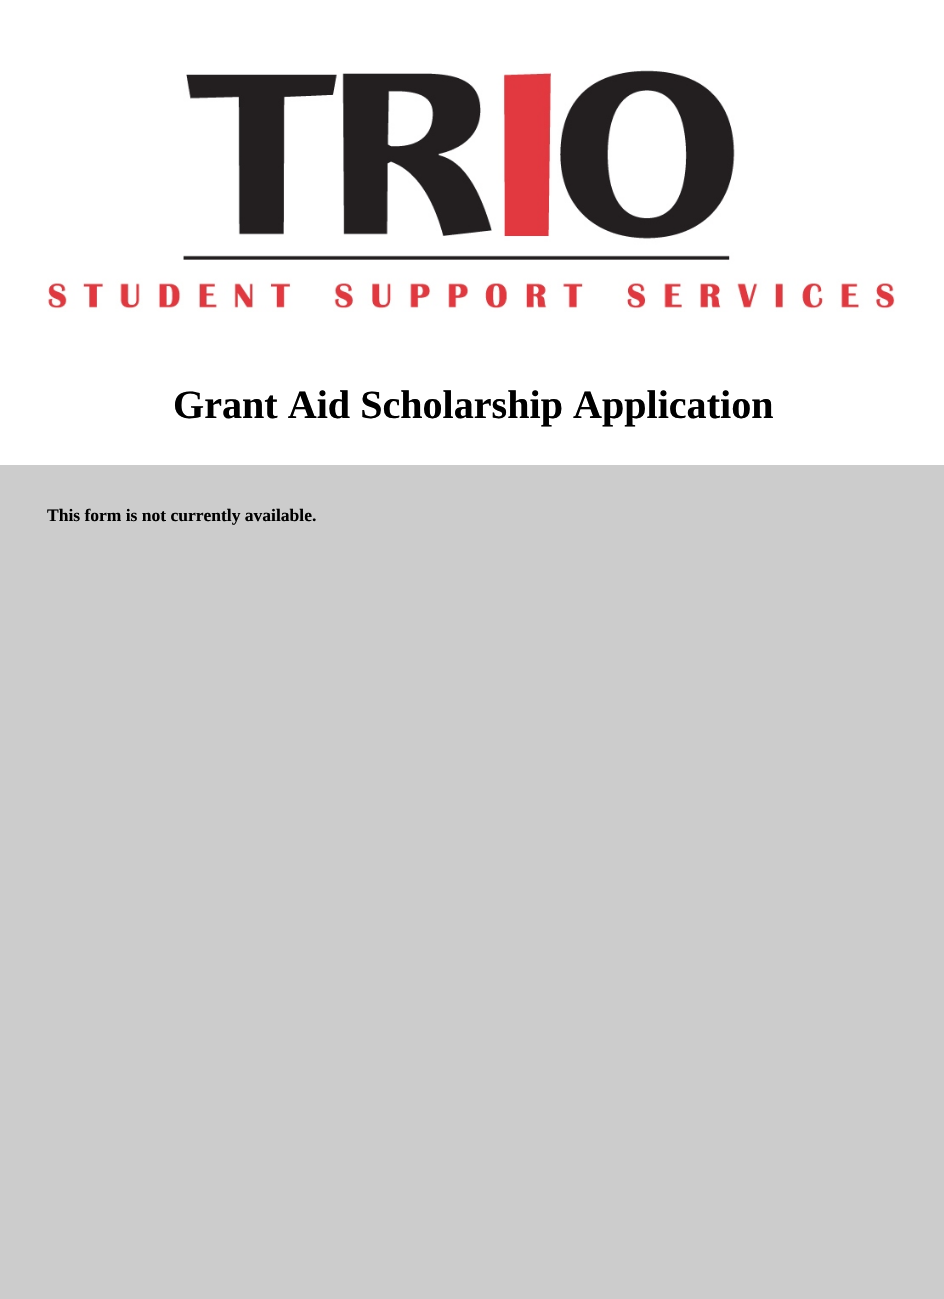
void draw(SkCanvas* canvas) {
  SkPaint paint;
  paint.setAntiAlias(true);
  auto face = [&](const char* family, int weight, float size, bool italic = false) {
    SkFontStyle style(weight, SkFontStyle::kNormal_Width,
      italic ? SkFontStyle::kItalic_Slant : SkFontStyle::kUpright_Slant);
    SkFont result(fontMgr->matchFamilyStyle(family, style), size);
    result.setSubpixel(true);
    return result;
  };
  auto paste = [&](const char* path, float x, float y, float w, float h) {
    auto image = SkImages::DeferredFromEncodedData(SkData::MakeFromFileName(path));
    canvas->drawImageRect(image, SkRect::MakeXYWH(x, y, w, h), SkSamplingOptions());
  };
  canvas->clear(0xffcccccc);
  paint.setColor(0xffffffff);
  canvas->drawRect(SkRect::MakeXYWH(0, 0, 944, 465), paint);
  paste("img/1.png", 47, 70, 848, 242);
  auto f0 = face("Liberation Serif", 700, 40.1f);
  paint.setColor(0xff000000);
  canvas->drawString("Grant Aid Scholarship Application", 173, 418, f0, paint);
  auto f1 = face("Liberation Serif", 700, 17.5f);
  canvas->drawString("This form is not currently available.", 47, 521, f1, paint);
}
